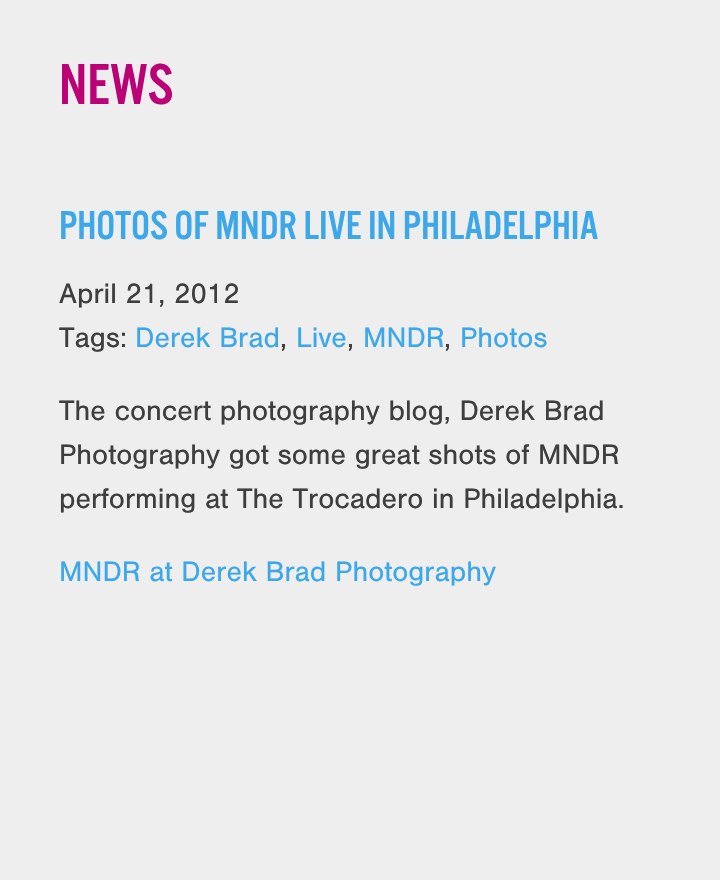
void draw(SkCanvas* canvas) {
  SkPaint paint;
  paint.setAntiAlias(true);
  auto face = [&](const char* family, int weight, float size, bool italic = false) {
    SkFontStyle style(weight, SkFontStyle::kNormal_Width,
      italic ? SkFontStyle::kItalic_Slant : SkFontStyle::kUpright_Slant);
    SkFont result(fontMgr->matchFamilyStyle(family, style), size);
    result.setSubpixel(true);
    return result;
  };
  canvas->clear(0xffeeeeee);
  auto f0 = face("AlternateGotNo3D", 400, 60);
  paint.setColor(0xffbc0075);
  canvas->drawString("NEWS", 59, 104, f0, paint);
  auto f1 = face("AlternateGotNo3D", 400, 42);
  paint.setColor(0xff3da8e9);
  canvas->drawString("PHOTOS OF MNDR LIVE IN PHILADELPHIA", 59, 239, f1, paint);
  auto f2 = face("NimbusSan", 400, 29.25f);
  paint.setColor(0xff3e3e3e);
  canvas->drawString("April 21, 2012", 59, 303, f2, paint);
  canvas->drawString("Tags:", 59, 347, f2, paint);
  paint.setColor(0xff3da8e9);
  canvas->drawString("Derek Brad", 135, 347, f2, paint);
  paint.setColor(0xff3e3e3e);
  canvas->drawString(",", 280, 347, f2, paint);
  paint.setColor(0xff3da8e9);
  canvas->drawString("Live", 296, 347, f2, paint);
  paint.setColor(0xff3e3e3e);
  canvas->drawString(",", 347, 347, f2, paint);
  paint.setColor(0xff3da8e9);
  canvas->drawString("MNDR", 363, 347, f2, paint);
  paint.setColor(0xff3e3e3e);
  canvas->drawString(",", 444, 347, f2, paint);
  paint.setColor(0xff3da8e9);
  canvas->drawString("Photos", 460, 347, f2, paint);
  paint.setColor(0xff3e3e3e);
  {
    const struct { const char* s; float x, y; } items[] = {
      {"The concert photography blog, Derek Brad", 59, 420},
      {"Photography got some great shots of MNDR", 59, 464},
      {"performing at The Trocadero in Philadelphia.", 59, 508},
    };
    for (auto [s, x, y] : items) {
      canvas->drawString(s, x, y, f2, paint);
    }
  }
  paint.setColor(0xff3da8e9);
  canvas->drawString("MNDR at Derek Brad Photography", 59, 581, f2, paint);
}
